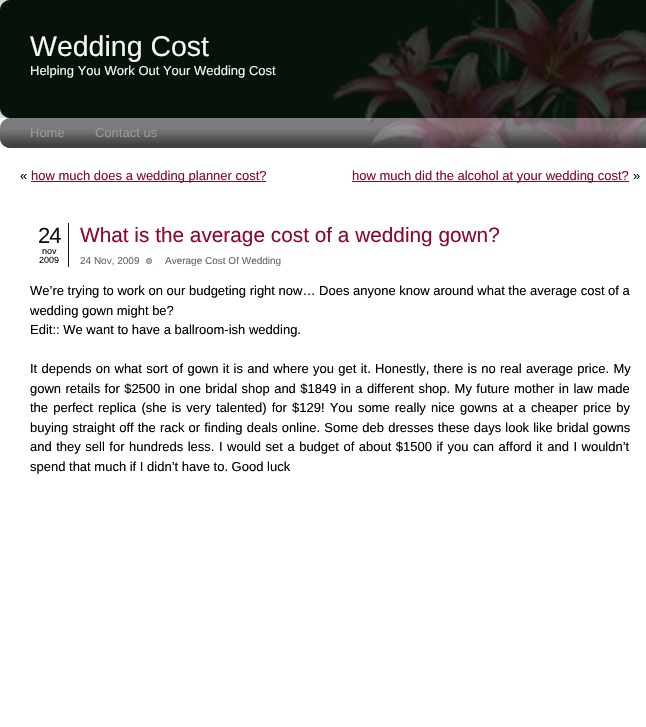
void draw(SkCanvas* canvas) {
  SkPaint paint;
  paint.setAntiAlias(true);
  auto face = [&](const char* family, int weight, float size, bool italic = false) {
    SkFontStyle style(weight, SkFontStyle::kNormal_Width,
      italic ? SkFontStyle::kItalic_Slant : SkFontStyle::kUpright_Slant);
    SkFont result(fontMgr->matchFamilyStyle(family, style), size);
    result.setSubpixel(true);
    return result;
  };
  auto writeSpaced = [&](const char* s, float x, float y, const SkFont& font, const SkPaint& ink, float letter, float word) {
    std::vector<SkGlyphID> glyphs(font.countText(s, strlen(s), SkTextEncoding::kUTF8));
    std::vector<float> xs(glyphs.size());
    font.textToGlyphs(s, strlen(s), SkTextEncoding::kUTF8, glyphs);
    font.getXPos(glyphs, xs, x);
    float extra = 0;
    for (size_t i = 0; i < glyphs.size(); i++) {
      xs[i] += extra;
      extra += letter + word * (glyphs[i] == font.unicharToGlyph(' '));
    }
    canvas->drawTextBlob(SkTextBlob::MakeFromPosHGlyphs(glyphs, xs, y, font), 0, 0, ink);
  };
  auto paste = [&](const char* path, float x, float y, float w, float h) {
    auto image = SkImages::DeferredFromEncodedData(SkData::MakeFromFileName(path));
    canvas->drawImageRect(image, SkRect::MakeXYWH(x, y, w, h), SkSamplingOptions());
  };
  canvas->clear(0xffffffff);
  paste("img/1.png", 0, 0, 646, 118);
  paste("img/2.png", 0, 118, 646, 30);
  {
    const struct { float x, y, w, h; SkColor color; } items[] = {
      {31, 181, 235, 1, 0xff8d092a},
      {352, 181, 277, 1, 0xff8d092a},
      {68, 223, 1, 44, 0xff111111},
    };
    for (auto [x, y, w, h, color] : items) {
      paint.setColor(color);
      canvas->drawRect(SkRect::MakeXYWH(x, y, w, h), paint);
    }
  }
  paste("img/3.png", 146, 258, 6, 6);
  auto f0 = face("Liberation Sans", 400, 28.5f);
  paint.setColor(0xfff7f7f7);
  canvas->drawString("Wedding Cost", 30, 56, f0, paint);
  auto f1 = face("Liberation Sans", 400, 13);
  canvas->drawString("Helping You Work Out Your Wedding Cost", 30, 75, f1, paint);
  paint.setColor(0xff999999);
  canvas->drawString("Home", 30, 137, f1, paint);
  canvas->drawString("Contact us", 95, 137, f1, paint);
  paint.setColor(0xff000000);
  canvas->drawString("«", 20, 180, f1, paint);
  paint.setColor(0xff8d092a);
  canvas->drawString("how much does a wedding planner cost?", 31, 180, f1, paint);
  canvas->drawString("how much did the alcohol at your wedding cost?", 352, 180, f1, paint);
  paint.setColor(0xff000000);
  canvas->drawString("»", 633, 180, f1, paint);
  auto f2 = face("Liberation Sans", 400, 22);
  paint.setColor(0xff111111);
  writeSpaced("24", 38, 243, f2, paint, -1, 0);
  auto f3 = face("Liberation Sans", 400, 9);
  canvas->drawString("nov", 42, 254, f3, paint);
  canvas->drawString("2009", 39, 263, f3, paint);
  auto f4 = face("Liberation Sans", 400, 20.8f);
  paint.setColor(0xff8d092a);
  canvas->drawString("What is the average cost of a wedding gown?", 80, 242, f4, paint);
  auto f5 = face("Liberation Sans", 400, 10);
  paint.setColor(0xff666666);
  canvas->drawString("24 Nov, 2009", 80, 264, f5, paint);
  canvas->drawString("Average Cost Of Wedding", 165, 264, f5, paint);
  paint.setColor(0xff000000);
  {
    const struct { const char* s; float x, y; } items[] = {
      {"We’re trying to work on our budgeting right now… Does anyone know around what the average cost of a", 30, 295},
      {"wedding gown might be?", 30, 315},
      {"Edit:: We want to have a ballroom-ish wedding.", 30, 334},
    };
    for (auto [s, x, y] : items) {
      canvas->drawString(s, x, y, f1, paint);
    }
  }
  writeSpaced("It depends on what sort of gown it is and where you get it. Honestly, there is no real average price. My", 30, 373, f1, paint, 0, 0.7f);
  writeSpaced("gown retails for $2500 in one bridal shop and $1849 in a different shop. My future mother in law made", 30, 393, f1, paint, 0, 0.8f);
  writeSpaced("the perfect replica (she is very talented) for $129! You some really nice gowns at a cheaper price by", 30, 412, f1, paint, 0, 1.5f);
  writeSpaced("buying straight off the rack or finding deals online. Some deb dresses these days look like bridal gowns", 30, 432, f1, paint, 0, 0.5f);
  writeSpaced("and they sell for hundreds less. I would set a budget of about $1500 if you can afford it and I wouldn’t", 30, 451, f1, paint, 0, 0.9f);
  canvas->drawString("spend that much if I didn’t have to. Good luck", 30, 471, f1, paint);
}
